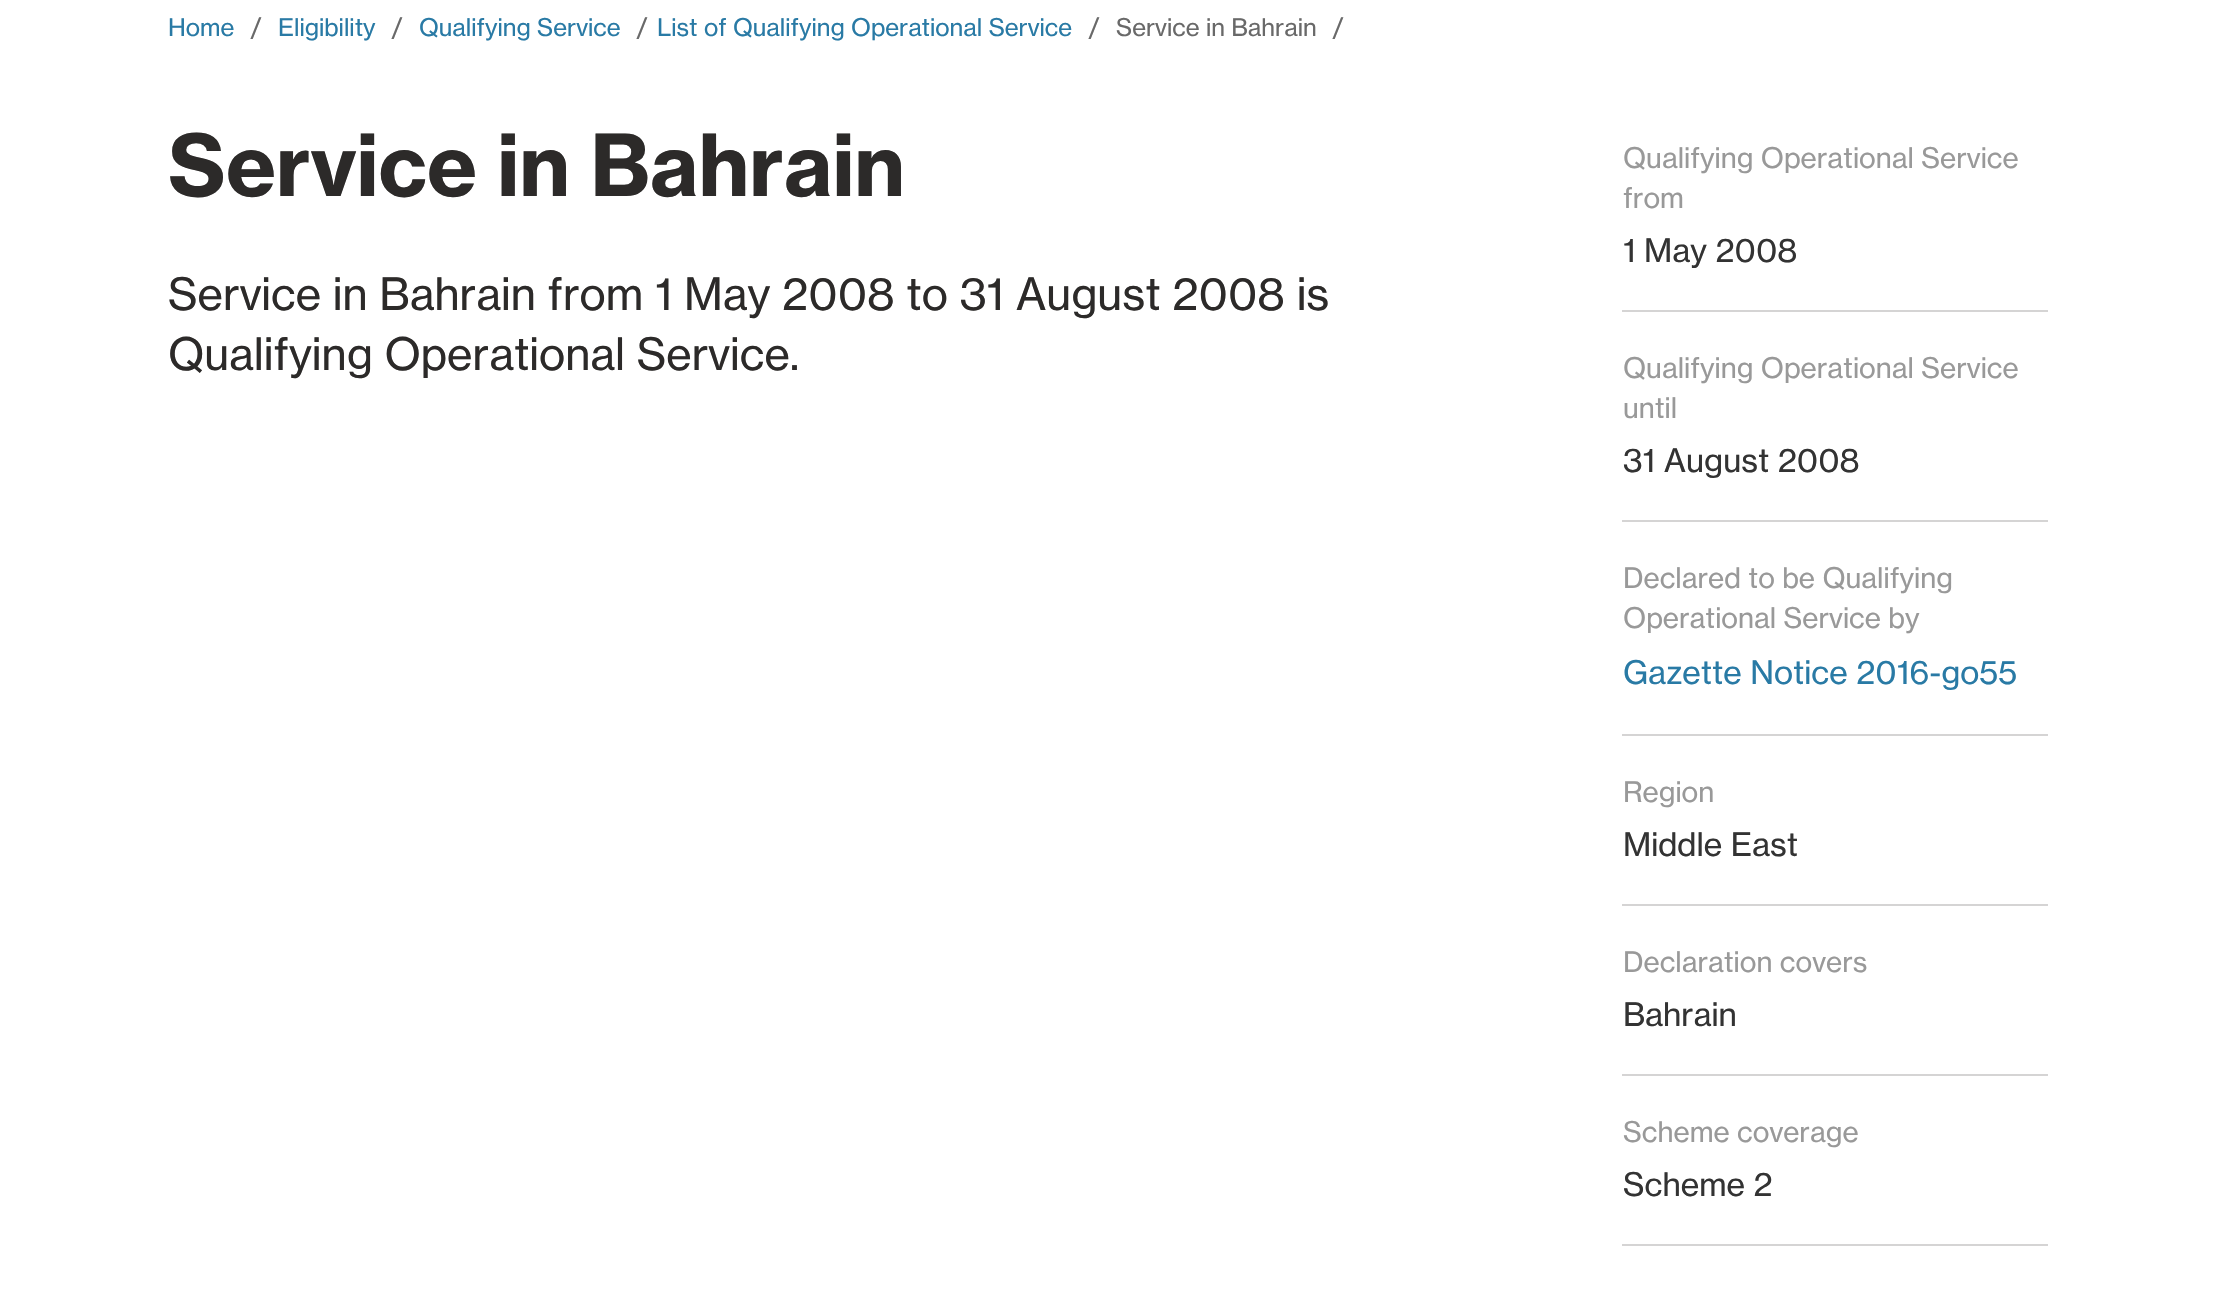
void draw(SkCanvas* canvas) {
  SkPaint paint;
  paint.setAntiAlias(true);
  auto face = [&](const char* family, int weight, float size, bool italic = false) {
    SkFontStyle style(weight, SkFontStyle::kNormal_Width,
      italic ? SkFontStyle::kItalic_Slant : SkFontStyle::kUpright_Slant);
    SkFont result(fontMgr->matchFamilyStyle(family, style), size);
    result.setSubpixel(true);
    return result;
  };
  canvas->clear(0xffffffff);
  {
    const struct { float x, y, w, h; SkColor color; } items[] = {
      {1622, 310, 426, 2, 0xffd5d4d4},
      {1622, 520, 426, 2, 0xffd5d4d4},
      {1622, 734, 426, 2, 0xffd5d4d4},
      {1622, 904, 426, 2, 0xffd5d4d4},
      {1622, 1074, 426, 2, 0xffd5d4d4},
      {1622, 1244, 426, 2, 0xffd5d4d4},
    };
    for (auto [x, y, w, h, color] : items) {
      paint.setColor(color);
      canvas->drawRect(SkRect::MakeXYWH(x, y, w, h), paint);
    }
  }
  auto f0 = face("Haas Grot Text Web", 400, 24);
  paint.setColor(0xff297aa5);
  canvas->drawString("Home", 168, 36, f0, paint);
  paint.setColor(0xff696969);
  canvas->drawString("/", 251, 36, f0, paint);
  paint.setColor(0xff297aa5);
  canvas->drawString("Eligibility", 278, 36, f0, paint);
  paint.setColor(0xff696969);
  canvas->drawString("/", 392, 36, f0, paint);
  paint.setColor(0xff297aa5);
  canvas->drawString("Qualifying Service", 419, 36, f0, paint);
  paint.setColor(0xff696969);
  canvas->drawString("/", 637, 36, f0, paint);
  paint.setColor(0xff297aa5);
  canvas->drawString("List of Qualifying Operational Service", 657, 36, f0, paint);
  paint.setColor(0xff696969);
  {
    const struct { const char* s; float x, y; } items[] = {
      {"/", 1089, 36},
      {"Service in Bahrain", 1116, 36},
      {"/", 1333, 36},
    };
    for (auto [s, x, y] : items) {
      canvas->drawString(s, x, y, f0, paint);
    }
  }
  auto f1 = face("Haas Grot Text Web", 700, 84);
  paint.setColor(0xff2c2a29);
  canvas->drawString("Service in Bahrain", 168, 196, f1, paint);
  auto f2 = face("Haas Grot Text Web", 400, 44);
  canvas->drawString("Service in Bahrain from 1 May 2008 to 31 August 2008 is", 168, 310, f2, paint);
  canvas->drawString("Qualifying Operational Service.", 168, 370, f2, paint);
  auto f3 = face("Haas Grot Text Web", 400, 28);
  paint.setColor(0xff999999);
  canvas->drawString("Qualifying Operational Service", 1623, 168, f3, paint);
  canvas->drawString("from", 1623, 208, f3, paint);
  auto f4 = face("Haas Grot Text Web", 400, 32);
  paint.setColor(0xff333333);
  canvas->drawString("1 May 2008", 1623, 262, f4, paint);
  paint.setColor(0xff999999);
  canvas->drawString("Qualifying Operational Service", 1623, 378, f3, paint);
  canvas->drawString("until", 1623, 418, f3, paint);
  paint.setColor(0xff333333);
  canvas->drawString("31 August 2008", 1623, 472, f4, paint);
  paint.setColor(0xff999999);
  canvas->drawString("Declared to be Qualifying", 1623, 588, f3, paint);
  canvas->drawString("Operational Service by", 1623, 628, f3, paint);
  paint.setColor(0xff297aa5);
  canvas->drawString("Gazette Notice 2016-go55", 1623, 684, f4, paint);
  paint.setColor(0xff999999);
  canvas->drawString("Region", 1623, 802, f3, paint);
  paint.setColor(0xff333333);
  canvas->drawString("Middle East", 1623, 856, f4, paint);
  paint.setColor(0xff999999);
  canvas->drawString("Declaration covers", 1623, 972, f3, paint);
  paint.setColor(0xff333333);
  canvas->drawString("Bahrain", 1623, 1026, f4, paint);
  paint.setColor(0xff999999);
  canvas->drawString("Scheme coverage", 1623, 1142, f3, paint);
  paint.setColor(0xff333333);
  canvas->drawString("Scheme 2", 1623, 1196, f4, paint);
}
